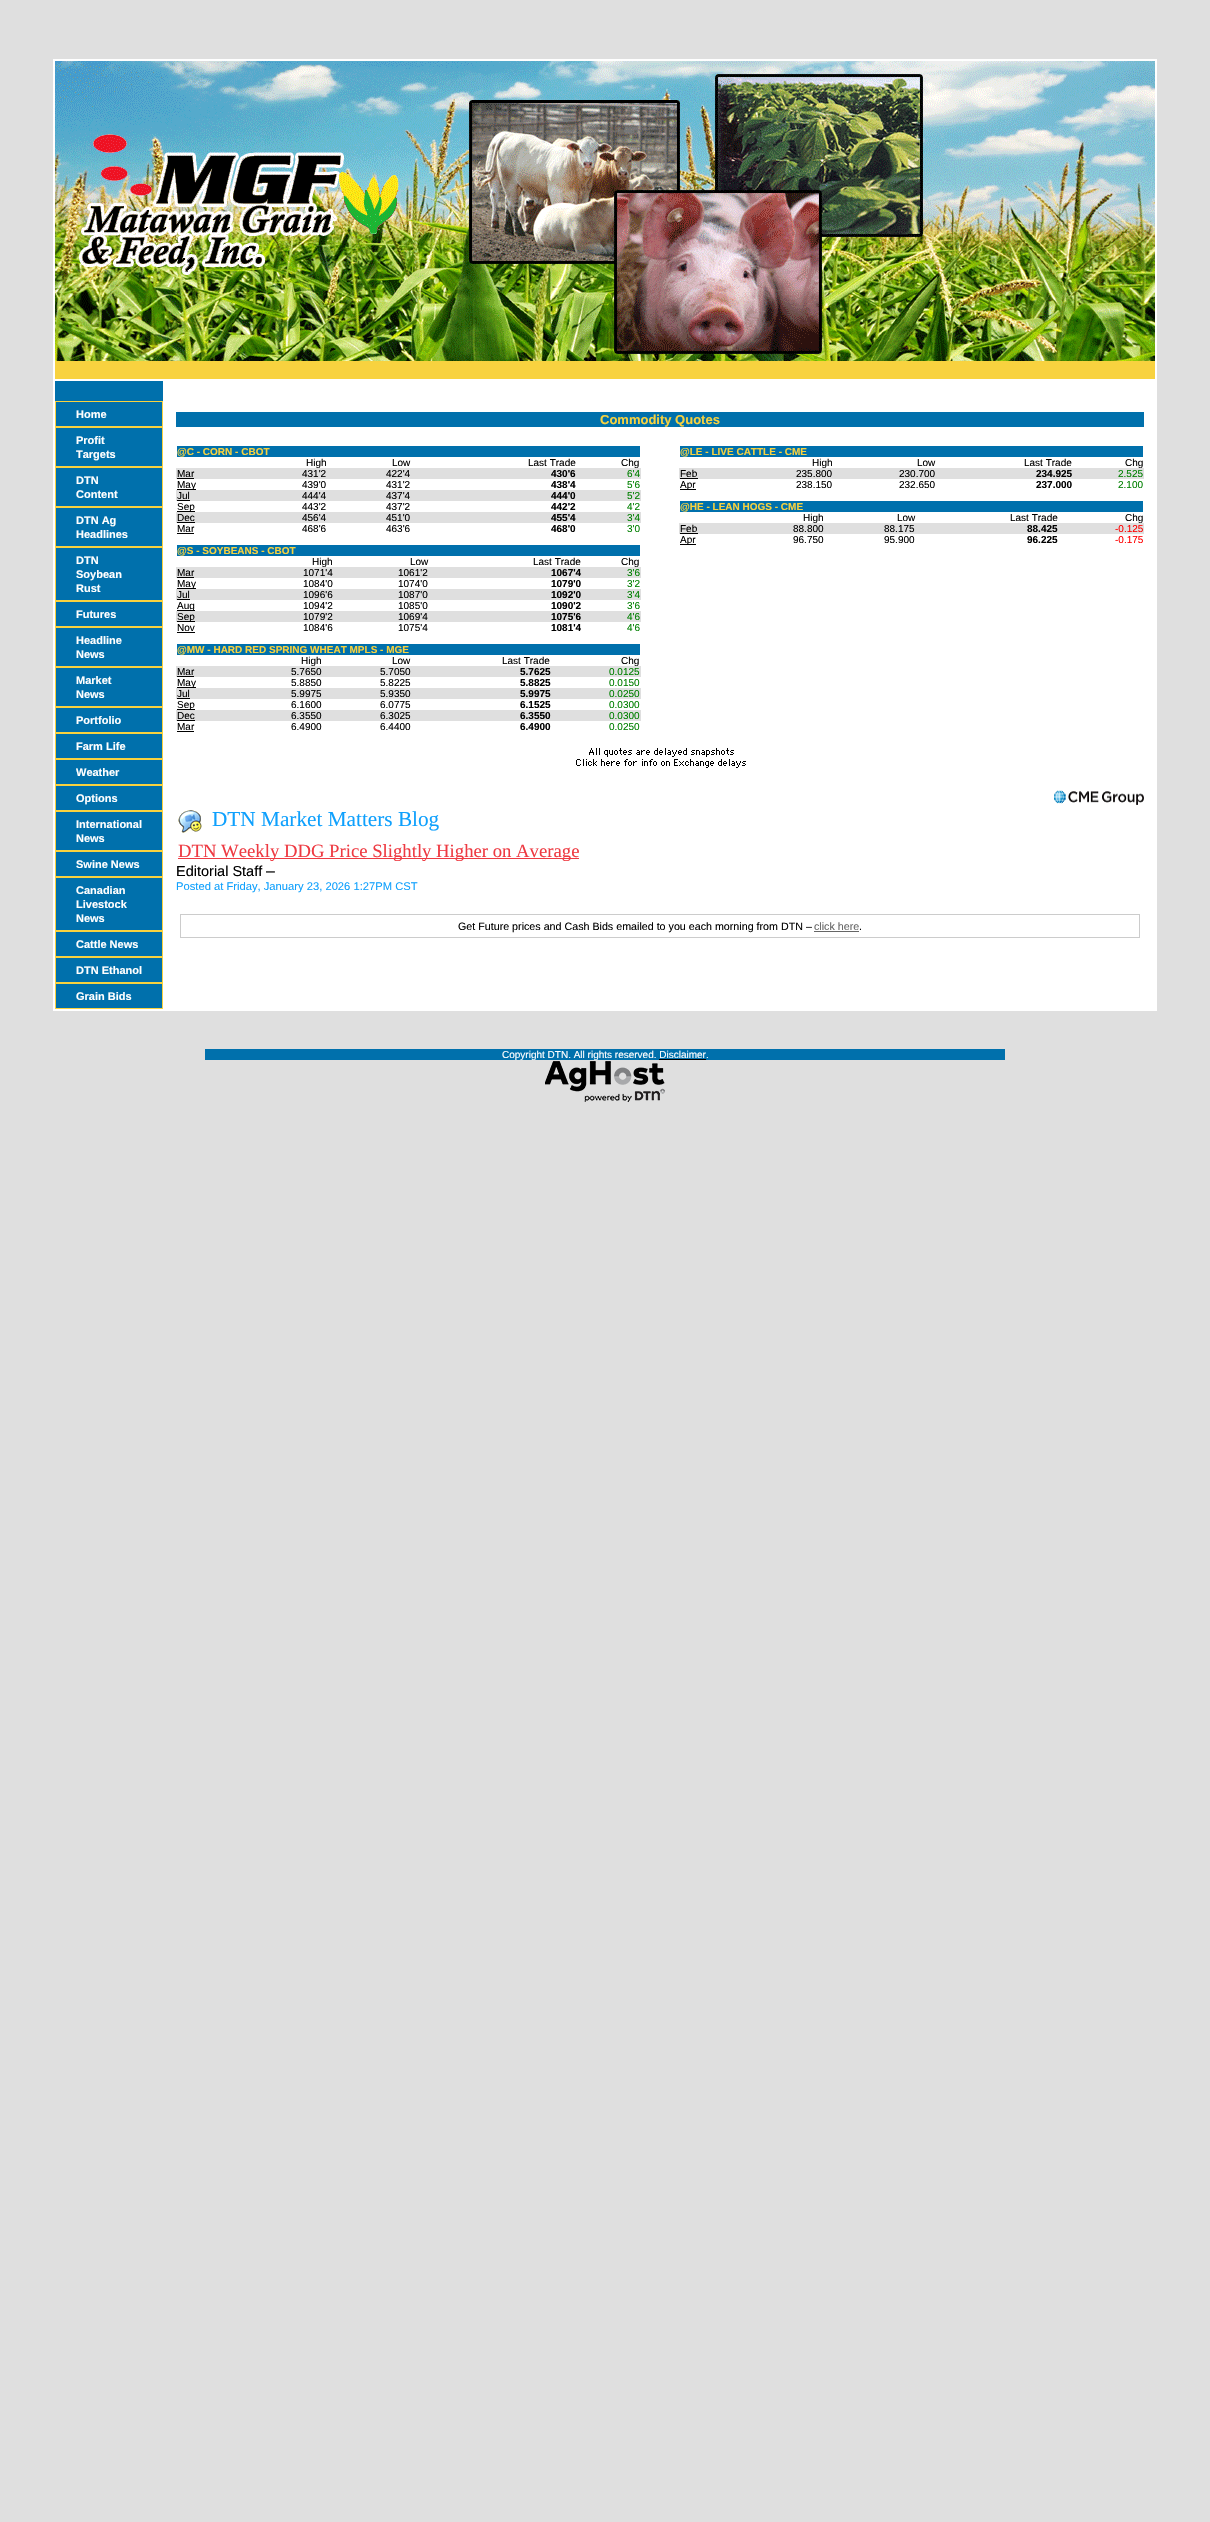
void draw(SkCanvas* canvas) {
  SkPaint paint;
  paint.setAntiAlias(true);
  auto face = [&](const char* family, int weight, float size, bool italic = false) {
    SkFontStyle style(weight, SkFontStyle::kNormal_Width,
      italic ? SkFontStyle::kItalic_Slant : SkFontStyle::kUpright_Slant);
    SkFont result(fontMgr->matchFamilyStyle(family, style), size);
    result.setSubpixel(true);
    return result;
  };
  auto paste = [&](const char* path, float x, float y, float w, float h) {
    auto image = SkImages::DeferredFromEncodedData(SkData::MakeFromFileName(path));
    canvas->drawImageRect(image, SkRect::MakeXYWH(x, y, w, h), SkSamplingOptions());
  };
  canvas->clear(0xffdfdfdf);
  paint.setColor(0xffffffff);
  canvas->drawRect(SkRect::MakeXYWH(53, 59, 1104, 952), paint);
  paste("img/1.png", 55, 61, 1100, 300);
  paint.setColor(0xfff8d23f);
  canvas->drawRect(SkRect::MakeXYWH(55, 361, 1100, 18), paint);
  paint.setColor(0xff0070ac);
  canvas->drawRect(SkRect::MakeXYWH(55, 381, 108, 627), paint);
  paint.setStroke(true);
  paint.setStrokeWidth(1);
  paint.setColor(0xfff8d23f);
  canvas->drawRect(SkRect::MakeXYWH(55.5f, 401.5f, 107, 25), paint);
  canvas->drawRect(SkRect::MakeXYWH(55.5f, 427.5f, 107, 39), paint);
  canvas->drawRect(SkRect::MakeXYWH(55.5f, 467.5f, 107, 39), paint);
  canvas->drawRect(SkRect::MakeXYWH(55.5f, 507.5f, 107, 39), paint);
  canvas->drawRect(SkRect::MakeXYWH(55.5f, 547.5f, 107, 53), paint);
  canvas->drawRect(SkRect::MakeXYWH(55.5f, 601.5f, 107, 25), paint);
  canvas->drawRect(SkRect::MakeXYWH(55.5f, 627.5f, 107, 39), paint);
  canvas->drawRect(SkRect::MakeXYWH(55.5f, 667.5f, 107, 39), paint);
  canvas->drawRect(SkRect::MakeXYWH(55.5f, 707.5f, 107, 25), paint);
  canvas->drawRect(SkRect::MakeXYWH(55.5f, 733.5f, 107, 25), paint);
  canvas->drawRect(SkRect::MakeXYWH(55.5f, 759.5f, 107, 25), paint);
  canvas->drawRect(SkRect::MakeXYWH(55.5f, 785.5f, 107, 25), paint);
  canvas->drawRect(SkRect::MakeXYWH(55.5f, 811.5f, 107, 39), paint);
  canvas->drawRect(SkRect::MakeXYWH(55.5f, 851.5f, 107, 25), paint);
  canvas->drawRect(SkRect::MakeXYWH(55.5f, 877.5f, 107, 53), paint);
  canvas->drawRect(SkRect::MakeXYWH(55.5f, 931.5f, 107, 25), paint);
  canvas->drawRect(SkRect::MakeXYWH(55.5f, 957.5f, 107, 25), paint);
  canvas->drawRect(SkRect::MakeXYWH(55.5f, 983.5f, 107, 25), paint);
  paint.setStroke(false);
  {
    const struct { float x, y, w, h; SkColor color; } items[] = {
      {176, 412, 968, 15, 0xff0070ac},
      {177, 446, 463, 11, 0xff0070ac},
      {176, 468, 465, 11, 0xffdfdfdf},
      {177, 478, 17, 1, 0xff000000},
      {177, 489, 19, 1, 0xff000000},
      {176, 490, 465, 11, 0xffdfdfdf},
      {177, 500, 13, 1, 0xff000000},
      {177, 511, 18, 1, 0xff000000},
      {176, 512, 465, 11, 0xffdfdfdf},
      {177, 522, 18, 1, 0xff000000},
      {177, 533, 17, 1, 0xff000000},
      {177, 545, 463, 11, 0xff0070ac},
      {176, 567, 465, 11, 0xffdfdfdf},
      {177, 577, 17, 1, 0xff000000},
      {177, 588, 19, 1, 0xff000000},
      {176, 589, 465, 11, 0xffdfdfdf},
      {177, 599, 13, 1, 0xff000000},
      {177, 610, 18, 1, 0xff000000},
      {176, 611, 465, 11, 0xffdfdfdf},
      {177, 621, 18, 1, 0xff000000},
      {177, 632, 18, 1, 0xff000000},
      {177, 644, 463, 11, 0xff0070ac},
      {176, 666, 465, 11, 0xffdfdfdf},
      {177, 676, 17, 1, 0xff000000},
      {177, 687, 19, 1, 0xff000000},
      {176, 688, 465, 11, 0xffdfdfdf},
      {177, 698, 13, 1, 0xff000000},
      {177, 709, 18, 1, 0xff000000},
      {176, 710, 465, 11, 0xffdfdfdf},
      {177, 720, 18, 1, 0xff000000},
      {177, 731, 17, 1, 0xff000000},
      {680, 446, 463, 11, 0xff0070ac},
      {679, 468, 465, 11, 0xffdfdfdf},
      {680, 478, 18, 1, 0xff000000},
      {680, 489, 16, 1, 0xff000000},
      {680, 501, 463, 11, 0xff0070ac},
      {679, 523, 465, 11, 0xffdfdfdf},
      {680, 533, 18, 1, 0xff000000},
      {680, 544, 16, 1, 0xff000000},
    };
    for (auto [x, y, w, h, color] : items) {
      paint.setColor(color);
      canvas->drawRect(SkRect::MakeXYWH(x, y, w, h), paint);
    }
  }
  paste("img/2.png", 576, 748, 170, 20);
  paste("img/3.png", 1054, 790, 90, 15);
  paste("img/4.png", 178, 810, 24, 23);
  paint.setColor(0xffee3a42);
  canvas->drawRect(SkRect::MakeXYWH(178, 858, 401, 1), paint);
  paint.setStroke(true);
  paint.setColor(0xffcccccc);
  canvas->drawRect(SkRect::MakeXYWH(180.5f, 914.5f, 959, 23), paint);
  paint.setStroke(false);
  paint.setColor(0xff666666);
  canvas->drawRect(SkRect::MakeXYWH(814, 931, 45, 1), paint);
  paint.setColor(0xff0070ac);
  canvas->drawRect(SkRect::MakeXYWH(205, 1049, 800, 11), paint);
  paste("img/5.png", 545, 1061, 120, 41);
  auto f0 = face("Liberation Sans", 700, 11);
  paint.setColor(0xffffffff);
  {
    const struct { const char* s; float x, y; } items[] = {
      {"Home", 76, 418},
      {"Profit", 76, 444},
      {"Targets", 76, 458},
      {"DTN", 76, 484},
      {"Content", 76, 498},
      {"DTN Ag", 76, 524},
      {"Headlines", 76, 538},
      {"DTN", 76, 564},
      {"Soybean", 76, 578},
      {"Rust", 76, 592},
      {"Futures", 76, 618},
      {"Headline", 76, 644},
      {"News", 76, 658},
      {"Market", 76, 684},
      {"News", 76, 698},
      {"Portfolio", 76, 724},
      {"Farm Life", 76, 750},
      {"Weather", 76, 776},
      {"Options", 76, 802},
      {"International", 76, 828},
      {"News", 76, 842},
      {"Swine News", 76, 868},
      {"Canadian", 76, 894},
      {"Livestock", 76, 908},
      {"News", 76, 922},
      {"Cattle News", 76, 948},
      {"DTN Ethanol", 76, 974},
      {"Grain Bids", 76, 1000},
    };
    for (auto [s, x, y] : items) {
      canvas->drawString(s, x, y, f0, paint);
    }
  }
  auto f1 = face("Liberation Sans", 700, 13);
  paint.setColor(0xfff8d23f);
  canvas->drawString("Commodity Quotes", 600, 424, f1, paint);
  auto f2 = face("Liberation Sans", 700, 10);
  canvas->drawString("@C - CORN - CBOT", 177, 455, f2, paint);
  auto f3 = face("Liberation Sans", 400, 10);
  paint.setColor(0xff000000);
  {
    const struct { const char* s; float x, y; } items[] = {
      {"High", 306, 466},
      {"Low", 392, 466},
      {"Last Trade", 528, 466},
      {"Chg", 621, 466},
      {"Mar", 177, 477},
      {"431'2", 302, 477},
      {"422'4", 386, 477},
    };
    for (auto [s, x, y] : items) {
      canvas->drawString(s, x, y, f3, paint);
    }
  }
  canvas->drawString("430'6", 551, 477, f2, paint);
  paint.setColor(0xff008000);
  canvas->drawString("6'4", 627, 477, f3, paint);
  paint.setColor(0xff000000);
  {
    const struct { const char* s; float x, y; } items[] = {
      {"May", 177, 488},
      {"439'0", 302, 488},
      {"431'2", 386, 488},
    };
    for (auto [s, x, y] : items) {
      canvas->drawString(s, x, y, f3, paint);
    }
  }
  canvas->drawString("438'4", 551, 488, f2, paint);
  paint.setColor(0xff008000);
  canvas->drawString("5'6", 627, 488, f3, paint);
  paint.setColor(0xff000000);
  {
    const struct { const char* s; float x, y; } items[] = {
      {"Jul", 177, 499},
      {"444'4", 302, 499},
      {"437'4", 386, 499},
    };
    for (auto [s, x, y] : items) {
      canvas->drawString(s, x, y, f3, paint);
    }
  }
  canvas->drawString("444'0", 551, 499, f2, paint);
  paint.setColor(0xff008000);
  canvas->drawString("5'2", 627, 499, f3, paint);
  paint.setColor(0xff000000);
  {
    const struct { const char* s; float x, y; } items[] = {
      {"Sep", 177, 510},
      {"443'2", 302, 510},
      {"437'2", 386, 510},
    };
    for (auto [s, x, y] : items) {
      canvas->drawString(s, x, y, f3, paint);
    }
  }
  canvas->drawString("442'2", 551, 510, f2, paint);
  paint.setColor(0xff008000);
  canvas->drawString("4'2", 627, 510, f3, paint);
  paint.setColor(0xff000000);
  {
    const struct { const char* s; float x, y; } items[] = {
      {"Dec", 177, 521},
      {"456'4", 302, 521},
      {"451'0", 386, 521},
    };
    for (auto [s, x, y] : items) {
      canvas->drawString(s, x, y, f3, paint);
    }
  }
  canvas->drawString("455'4", 551, 521, f2, paint);
  paint.setColor(0xff008000);
  canvas->drawString("3'4", 627, 521, f3, paint);
  paint.setColor(0xff000000);
  {
    const struct { const char* s; float x, y; } items[] = {
      {"Mar", 177, 532},
      {"468'6", 302, 532},
      {"463'6", 386, 532},
    };
    for (auto [s, x, y] : items) {
      canvas->drawString(s, x, y, f3, paint);
    }
  }
  canvas->drawString("468'0", 551, 532, f2, paint);
  paint.setColor(0xff008000);
  canvas->drawString("3'0", 627, 532, f3, paint);
  paint.setColor(0xfff8d23f);
  canvas->drawString("@S - SOYBEANS - CBOT", 177, 554, f2, paint);
  paint.setColor(0xff000000);
  {
    const struct { const char* s; float x, y; } items[] = {
      {"High", 312, 565},
      {"Low", 410, 565},
      {"Last Trade", 533, 565},
      {"Chg", 621, 565},
      {"Mar", 177, 576},
      {"1071'4", 303, 576},
      {"1061'2", 398, 576},
    };
    for (auto [s, x, y] : items) {
      canvas->drawString(s, x, y, f3, paint);
    }
  }
  canvas->drawString("1067'4", 551, 576, f2, paint);
  paint.setColor(0xff008000);
  canvas->drawString("3'6", 627, 576, f3, paint);
  paint.setColor(0xff000000);
  {
    const struct { const char* s; float x, y; } items[] = {
      {"May", 177, 587},
      {"1084'0", 303, 587},
      {"1074'0", 398, 587},
    };
    for (auto [s, x, y] : items) {
      canvas->drawString(s, x, y, f3, paint);
    }
  }
  canvas->drawString("1079'0", 551, 587, f2, paint);
  paint.setColor(0xff008000);
  canvas->drawString("3'2", 627, 587, f3, paint);
  paint.setColor(0xff000000);
  {
    const struct { const char* s; float x, y; } items[] = {
      {"Jul", 177, 598},
      {"1096'6", 303, 598},
      {"1087'0", 398, 598},
    };
    for (auto [s, x, y] : items) {
      canvas->drawString(s, x, y, f3, paint);
    }
  }
  canvas->drawString("1092'0", 551, 598, f2, paint);
  paint.setColor(0xff008000);
  canvas->drawString("3'4", 627, 598, f3, paint);
  paint.setColor(0xff000000);
  {
    const struct { const char* s; float x, y; } items[] = {
      {"Aug", 177, 609},
      {"1094'2", 303, 609},
      {"1085'0", 398, 609},
    };
    for (auto [s, x, y] : items) {
      canvas->drawString(s, x, y, f3, paint);
    }
  }
  canvas->drawString("1090'2", 551, 609, f2, paint);
  paint.setColor(0xff008000);
  canvas->drawString("3'6", 627, 609, f3, paint);
  paint.setColor(0xff000000);
  {
    const struct { const char* s; float x, y; } items[] = {
      {"Sep", 177, 620},
      {"1079'2", 303, 620},
      {"1069'4", 398, 620},
    };
    for (auto [s, x, y] : items) {
      canvas->drawString(s, x, y, f3, paint);
    }
  }
  canvas->drawString("1075'6", 551, 620, f2, paint);
  paint.setColor(0xff008000);
  canvas->drawString("4'6", 627, 620, f3, paint);
  paint.setColor(0xff000000);
  {
    const struct { const char* s; float x, y; } items[] = {
      {"Nov", 177, 631},
      {"1084'6", 303, 631},
      {"1075'4", 398, 631},
    };
    for (auto [s, x, y] : items) {
      canvas->drawString(s, x, y, f3, paint);
    }
  }
  canvas->drawString("1081'4", 551, 631, f2, paint);
  paint.setColor(0xff008000);
  canvas->drawString("4'6", 627, 631, f3, paint);
  paint.setColor(0xfff8d23f);
  canvas->drawString("@MW - HARD RED SPRING WHEAT MPLS - MGE", 177, 653, f2, paint);
  paint.setColor(0xff000000);
  {
    const struct { const char* s; float x, y; } items[] = {
      {"High", 301, 664},
      {"Low", 392, 664},
      {"Last Trade", 502, 664},
      {"Chg", 621, 664},
      {"Mar", 177, 675},
      {"5.7650", 291, 675},
      {"5.7050", 380, 675},
    };
    for (auto [s, x, y] : items) {
      canvas->drawString(s, x, y, f3, paint);
    }
  }
  canvas->drawString("5.7625", 520, 675, f2, paint);
  paint.setColor(0xff008000);
  canvas->drawString("0.0125", 609, 675, f3, paint);
  paint.setColor(0xff000000);
  {
    const struct { const char* s; float x, y; } items[] = {
      {"May", 177, 686},
      {"5.8850", 291, 686},
      {"5.8225", 380, 686},
    };
    for (auto [s, x, y] : items) {
      canvas->drawString(s, x, y, f3, paint);
    }
  }
  canvas->drawString("5.8825", 520, 686, f2, paint);
  paint.setColor(0xff008000);
  canvas->drawString("0.0150", 609, 686, f3, paint);
  paint.setColor(0xff000000);
  {
    const struct { const char* s; float x, y; } items[] = {
      {"Jul", 177, 697},
      {"5.9975", 291, 697},
      {"5.9350", 380, 697},
    };
    for (auto [s, x, y] : items) {
      canvas->drawString(s, x, y, f3, paint);
    }
  }
  canvas->drawString("5.9975", 520, 697, f2, paint);
  paint.setColor(0xff008000);
  canvas->drawString("0.0250", 609, 697, f3, paint);
  paint.setColor(0xff000000);
  {
    const struct { const char* s; float x, y; } items[] = {
      {"Sep", 177, 708},
      {"6.1600", 291, 708},
      {"6.0775", 380, 708},
    };
    for (auto [s, x, y] : items) {
      canvas->drawString(s, x, y, f3, paint);
    }
  }
  canvas->drawString("6.1525", 520, 708, f2, paint);
  paint.setColor(0xff008000);
  canvas->drawString("0.0300", 609, 708, f3, paint);
  paint.setColor(0xff000000);
  {
    const struct { const char* s; float x, y; } items[] = {
      {"Dec", 177, 719},
      {"6.3550", 291, 719},
      {"6.3025", 380, 719},
    };
    for (auto [s, x, y] : items) {
      canvas->drawString(s, x, y, f3, paint);
    }
  }
  canvas->drawString("6.3550", 520, 719, f2, paint);
  paint.setColor(0xff008000);
  canvas->drawString("0.0300", 609, 719, f3, paint);
  paint.setColor(0xff000000);
  {
    const struct { const char* s; float x, y; } items[] = {
      {"Mar", 177, 730},
      {"6.4900", 291, 730},
      {"6.4400", 380, 730},
    };
    for (auto [s, x, y] : items) {
      canvas->drawString(s, x, y, f3, paint);
    }
  }
  canvas->drawString("6.4900", 520, 730, f2, paint);
  paint.setColor(0xff008000);
  canvas->drawString("0.0250", 609, 730, f3, paint);
  paint.setColor(0xfff8d23f);
  canvas->drawString("@LE - LIVE CATTLE - CME", 680, 455, f2, paint);
  paint.setColor(0xff000000);
  {
    const struct { const char* s; float x, y; } items[] = {
      {"High", 812, 466},
      {"Low", 917, 466},
      {"Last Trade", 1024, 466},
      {"Chg", 1125, 466},
      {"Feb", 680, 477},
      {"235.800", 796, 477},
      {"230.700", 899, 477},
    };
    for (auto [s, x, y] : items) {
      canvas->drawString(s, x, y, f3, paint);
    }
  }
  canvas->drawString("234.925", 1036, 477, f2, paint);
  paint.setColor(0xff008000);
  canvas->drawString("2.525", 1118, 477, f3, paint);
  paint.setColor(0xff000000);
  {
    const struct { const char* s; float x, y; } items[] = {
      {"Apr", 680, 488},
      {"238.150", 796, 488},
      {"232.650", 899, 488},
    };
    for (auto [s, x, y] : items) {
      canvas->drawString(s, x, y, f3, paint);
    }
  }
  canvas->drawString("237.000", 1036, 488, f2, paint);
  paint.setColor(0xff008000);
  canvas->drawString("2.100", 1118, 488, f3, paint);
  paint.setColor(0xfff8d23f);
  canvas->drawString("@HE - LEAN HOGS - CME", 680, 510, f2, paint);
  paint.setColor(0xff000000);
  {
    const struct { const char* s; float x, y; } items[] = {
      {"High", 803, 521},
      {"Low", 897, 521},
      {"Last Trade", 1010, 521},
      {"Chg", 1125, 521},
      {"Feb", 680, 532},
      {"88.800", 793, 532},
      {"88.175", 884, 532},
    };
    for (auto [s, x, y] : items) {
      canvas->drawString(s, x, y, f3, paint);
    }
  }
  canvas->drawString("88.425", 1027, 532, f2, paint);
  paint.setColor(0xffff0000);
  canvas->drawString("-0.125", 1115, 532, f3, paint);
  paint.setColor(0xff000000);
  {
    const struct { const char* s; float x, y; } items[] = {
      {"Apr", 680, 543},
      {"96.750", 793, 543},
      {"95.900", 884, 543},
    };
    for (auto [s, x, y] : items) {
      canvas->drawString(s, x, y, f3, paint);
    }
  }
  canvas->drawString("96.225", 1027, 543, f2, paint);
  paint.setColor(0xffff0000);
  canvas->drawString("-0.175", 1115, 543, f3, paint);
  auto f4 = face("Liberation Serif", 400, 21.25f);
  paint.setColor(0xff0ea0fd);
  canvas->drawString("DTN Market Matters Blog", 212, 826, f4, paint);
  auto f5 = face("Liberation Serif", 400, 18.7f);
  paint.setColor(0xffee3a42);
  canvas->drawString("DTN Weekly DDG Price Slightly Higher on Average", 178, 857, f5, paint);
  auto f6 = face("Liberation Sans", 400, 14.5f);
  paint.setColor(0xff000000);
  canvas->drawString("Editorial Staff", 176, 876, f6, paint);
  auto f7 = face("Liberation Sans", 400, 16);
  canvas->drawString("–", 266, 876, f7, paint);
  auto f8 = face("Liberation Sans", 400, 11.2f);
  paint.setColor(0xff0ea0fd);
  canvas->drawString("Posted at Friday, January 23, 2026 1:27PM CST", 176, 890, f8, paint);
  auto f9 = face("Liberation Sans", 400, 10.7f);
  paint.setColor(0xff000000);
  canvas->drawString("Get Future prices and Cash Bids emailed to you each morning from DTN –", 458, 930, f9, paint);
  paint.setColor(0xff666666);
  canvas->drawString("click here", 814, 930, f9, paint);
  paint.setColor(0xff000000);
  canvas->drawString(".", 859, 930, f9, paint);
  paint.setColor(0xffffffff);
  canvas->drawString("Copyright DTN. All rights reserved. Disclaimer.", 502, 1058, f3, paint);
  paint.setColor(0xff000000);
  canvas->drawRect(SkRect::MakeXYWH(659, 1059, 47, 1), paint);
}
